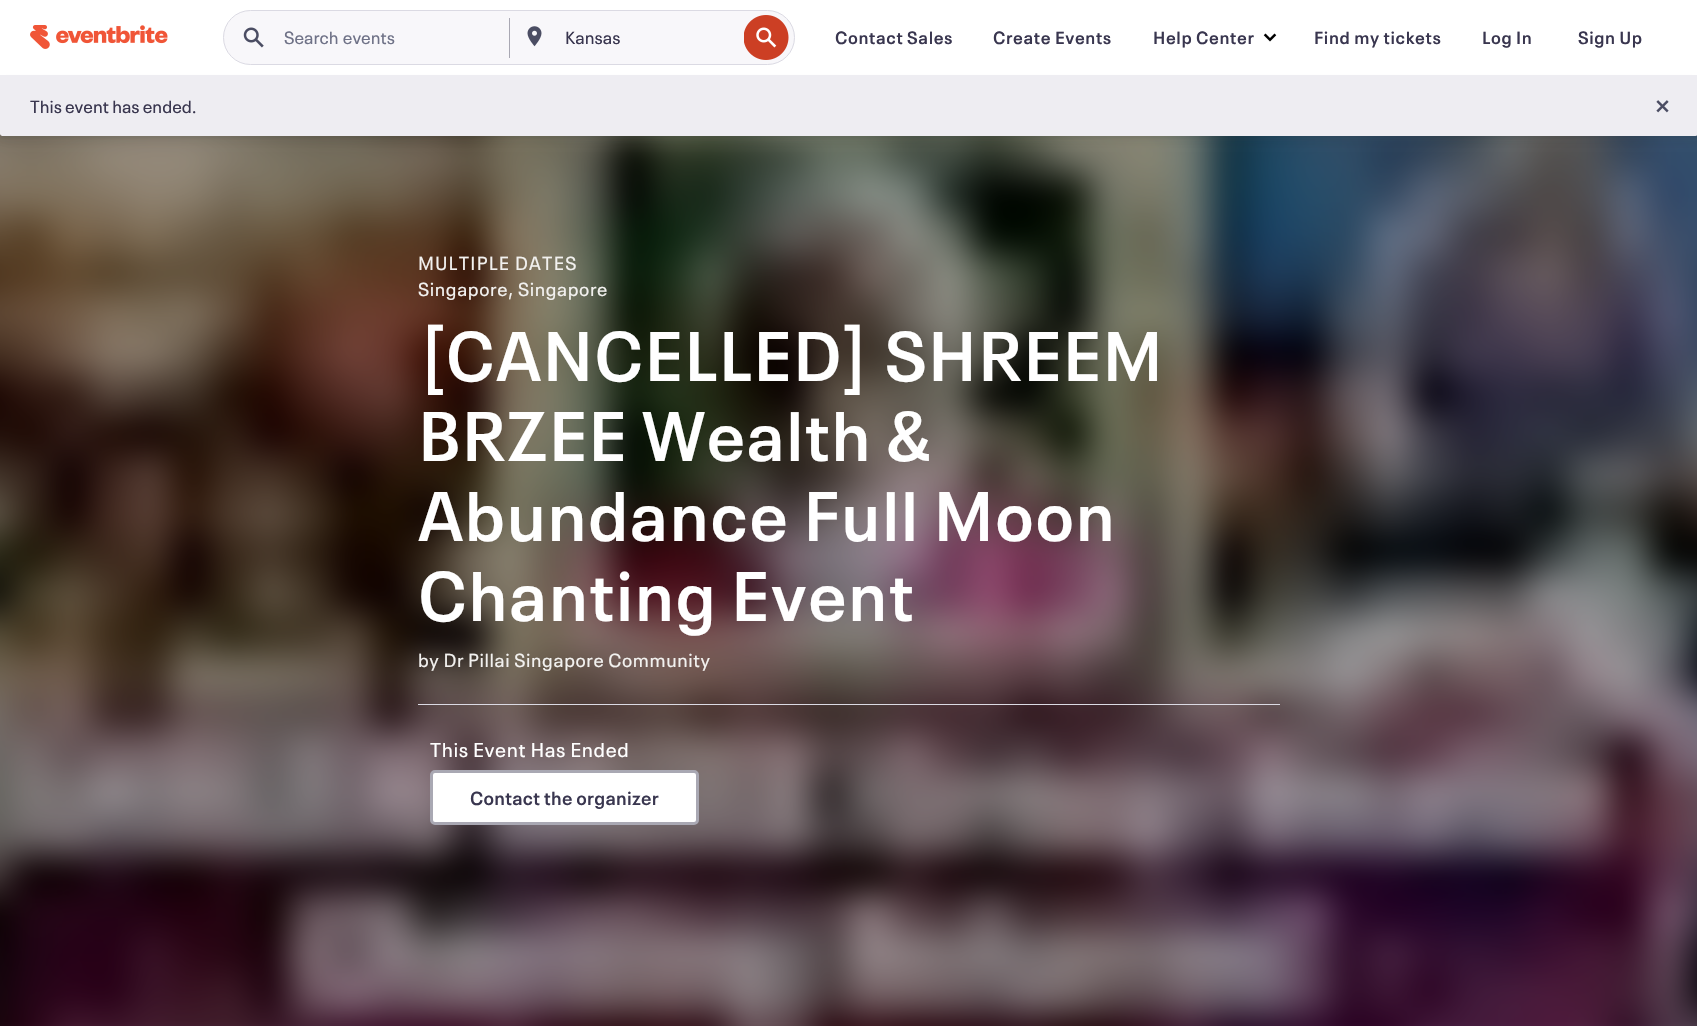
void draw(SkCanvas* canvas) {
  SkPaint paint;
  paint.setAntiAlias(true);
  auto face = [&](const char* family, int weight, float size, bool italic = false) {
    SkFontStyle style(weight, SkFontStyle::kNormal_Width,
      italic ? SkFontStyle::kItalic_Slant : SkFontStyle::kUpright_Slant);
    SkFont result(fontMgr->matchFamilyStyle(family, style), size);
    result.setSubpixel(true);
    return result;
  };
  auto writeSpaced = [&](const char* s, float x, float y, const SkFont& font, const SkPaint& ink, float letter, float word) {
    std::vector<SkGlyphID> glyphs(font.countText(s, strlen(s), SkTextEncoding::kUTF8));
    std::vector<float> xs(glyphs.size());
    font.textToGlyphs(s, strlen(s), SkTextEncoding::kUTF8, glyphs);
    font.getXPos(glyphs, xs, x);
    float extra = 0;
    for (size_t i = 0; i < glyphs.size(); i++) {
      xs[i] += extra;
      extra += letter + word * (glyphs[i] == font.unicharToGlyph(' '));
    }
    canvas->drawTextBlob(SkTextBlob::MakeFromPosHGlyphs(glyphs, xs, y, font), 0, 0, ink);
  };
  auto paste = [&](const char* path, float x, float y, float w, float h) {
    auto image = SkImages::DeferredFromEncodedData(SkData::MakeFromFileName(path));
    canvas->drawImageRect(image, SkRect::MakeXYWH(x, y, w, h), SkSamplingOptions());
  };
  auto shape = [&](const char* data, bool evenOdd = false) {
    SkPath result = *SkParsePath::FromSVGString(data);
    if (evenOdd) result.setFillType(SkPathFillType::kEvenOdd);
    return result;
  };
  canvas->clear(0xffffffff);
  paste("img/7.png", 0, 133, 1697, 893);
  paint.setColor(0x0f282c35);
  paint.setMaskFilter(SkMaskFilter::MakeBlur(kNormal_SkBlurStyle, 1));
  canvas->drawRoundRect(SkRect::MakeXYWH(0, 79, 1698, 60), 2.5f, 2.5f, paint);
  paint.setMaskFilter(nullptr);
  paint.setMaskFilter(SkMaskFilter::MakeBlur(kNormal_SkBlurStyle, 5));
  canvas->drawRoundRect(SkRect::MakeXYWH(0, 81, 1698, 60), 2.5f, 2.5f, paint);
  paint.setMaskFilter(nullptr);
  paint.setColor(0xffeeedf2);
  canvas->drawRect(SkRect::MakeXYWH(0, 75, 1697, 1), paint);
  paste("img/1.png", 30, 25, 138, 24);
  paint.setColor(0xfff8f7fa);
  canvas->drawRoundRect(SkRect::MakeXYWH(223.5f, 10.5f, 571, 54), 27, 27, paint);
  paint.setStroke(true);
  paint.setStrokeWidth(1);
  paint.setColor(0xffdbdae3);
  canvas->drawRoundRect(SkRect::MakeXYWH(223.5f, 10.5f, 571, 54), 27, 27, paint);
  paste("img/2.png", 243, 27, 21, 21);
  paint.setStroke(false);
  paint.setColor(0xffa9a8b3);
  canvas->drawRect(SkRect::MakeXYWH(509, 18, 1, 40), paint);
  paste("img/3.png", 527, 26, 15, 21);
  paste("img/4.png", 744, 15, 45, 45);
  paste("img/5.png", 1263, 33, 14, 9);
  paint.setColor(0xffeeedf2);
  canvas->drawPath(shape("M0 76H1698V133.5C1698 135 1697 136 1695.5 136H2.5C1 136 0 135 0 133.5Z"), paint);
  paste("img/6.png", 1656, 100, 13, 13);
  paint.setColor(0xffdbdae3);
  canvas->drawRect(SkRect::MakeXYWH(418, 704, 862, 1), paint);
  paint.setColor(0xffffffff);
  canvas->drawRoundRect(SkRect::MakeXYWH(431.5f, 771.5f, 266, 52), 3.5f, 3.5f, paint);
  paint.setStroke(true);
  paint.setStrokeWidth(3);
  paint.setColor(0xffa9a8b3);
  canvas->drawRoundRect(SkRect::MakeXYWH(431.5f, 771.5f, 266, 52), 3.5f, 3.5f, paint);
  auto f0 = face("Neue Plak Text", 400, 17.5f);
  paint.setStroke(false);
  paint.setColor(0xff6f7287);
  writeSpaced("Search events", 284, 44, f0, paint, 0, 1);
  paint.setColor(0xff39364f);
  canvas->drawString("Kansas", 565, 44, f0, paint);
  auto f1 = face("Neue Plak Text", 600, 17.5f);
  {
    const struct { const char* s; float x, y; } items[] = {
      {"Contact Sales", 835, 44},
      {"Create Events", 993, 44},
      {"Help Center", 1153, 44},
      {"Find my tickets", 1314, 44},
      {"Log In", 1482, 44},
      {"Sign Up", 1578, 44},
    };
    for (auto [s, x, y] : items) {
      writeSpaced(s, x, y, f1, paint, 0.6f, 0);
    }
  }
  canvas->drawString("This event has ended.", 30, 113, f0, paint);
  auto f2 = face("Neue Plak Text", 400, 18.7f);
  paint.setColor(0xfff2f1ef);
  writeSpaced("MULTIPLE DATES", 418, 270, f2, paint, 1.25f, 0);
  writeSpaced("Singapore, Singapore", 418, 296, f2, paint, 0.6f, 0);
  auto f3 = face("Neue Plak Text", 600, 69.25f);
  paint.setColor(0xffffffff);
  {
    const struct { const char* s; float x, y; } items[] = {
      {"[CANCELLED] SHREEM", 418, 381},
      {"BRZEE Wealth &", 418, 461},
      {"Abundance Full Moon", 418, 541},
      {"Chanting Event", 418, 621},
    };
    for (auto [s, x, y] : items) {
      writeSpaced(s, x, y, f3, paint, 1.25f, 0);
    }
  }
  paint.setColor(0xfff2f1ef);
  writeSpaced("by Dr Pillai Singapore Community", 418, 667, f2, paint, 0.6f, 0);
  auto f4 = face("Neue Plak Text", 400, 20);
  paint.setColor(0xffffffff);
  writeSpaced("This Event Has Ended", 430, 757, f4, paint, 0.6f, 0);
  auto f5 = face("Neue Plak Text", 600, 18.7f);
  paint.setColor(0xff39364f);
  writeSpaced("Contact the organizer", 470, 805, f5, paint, 0.25f, 0);
}
